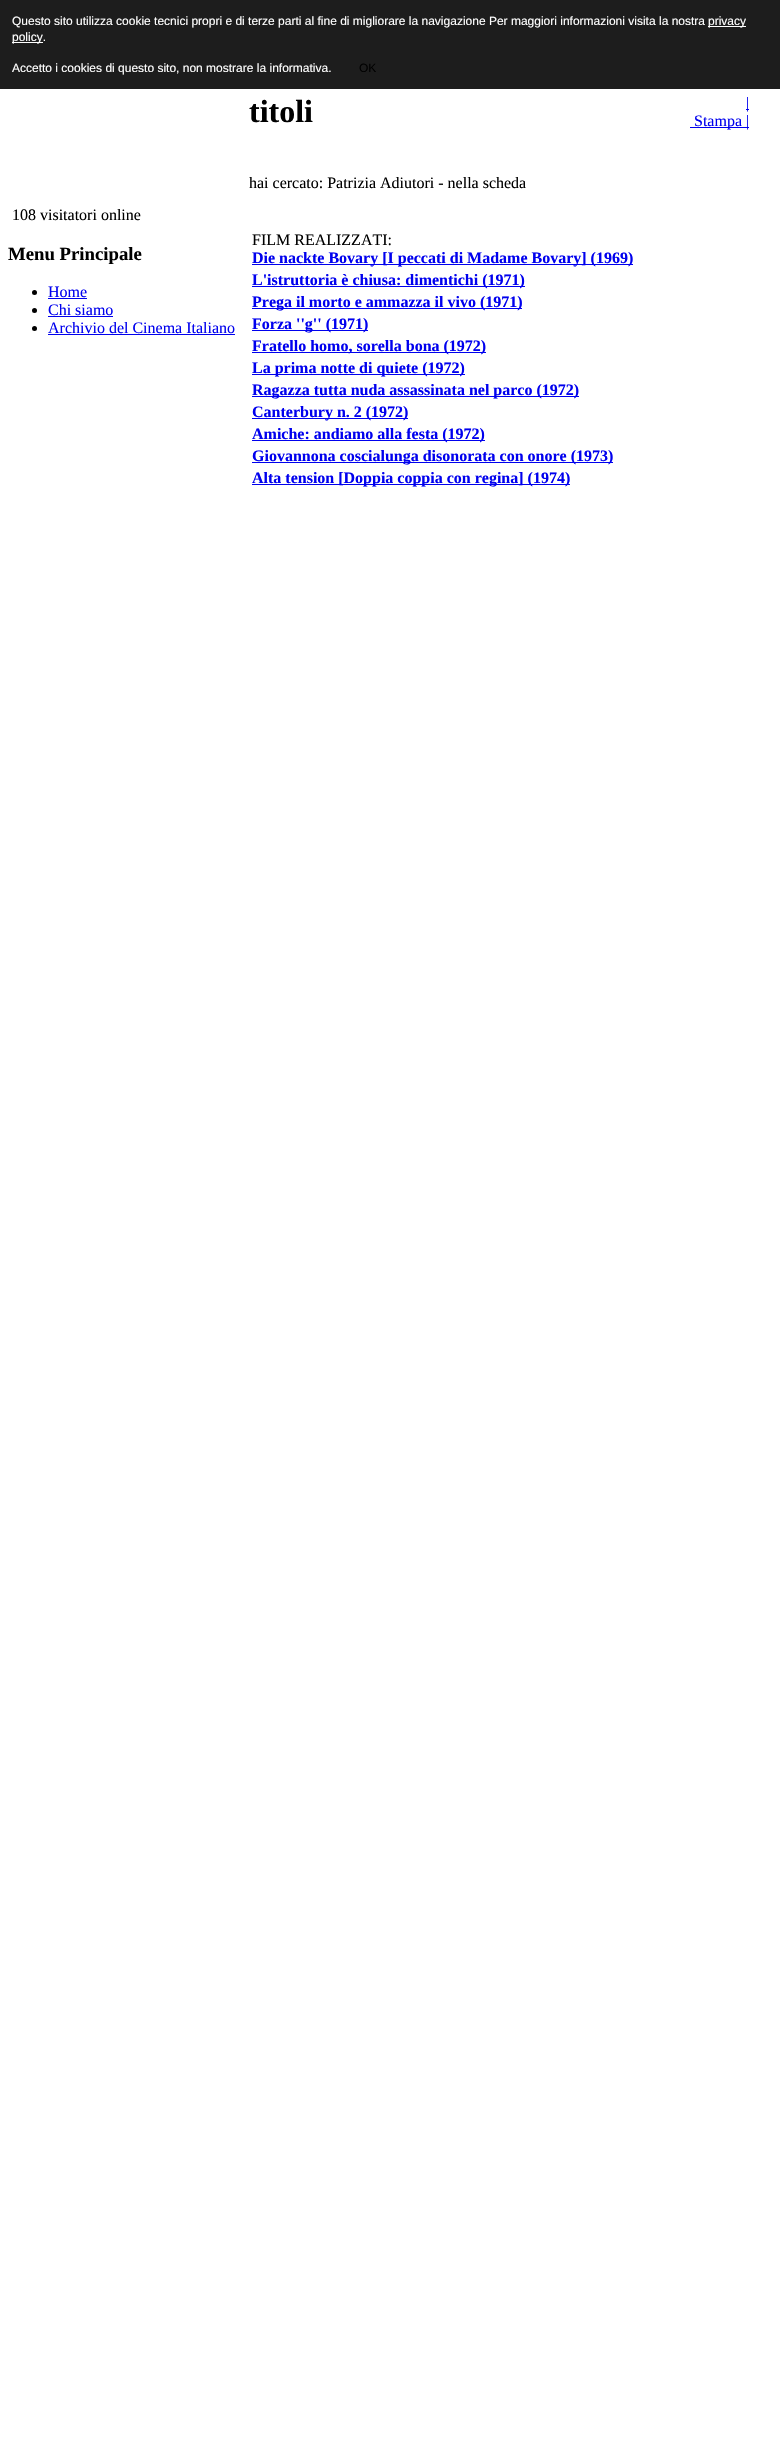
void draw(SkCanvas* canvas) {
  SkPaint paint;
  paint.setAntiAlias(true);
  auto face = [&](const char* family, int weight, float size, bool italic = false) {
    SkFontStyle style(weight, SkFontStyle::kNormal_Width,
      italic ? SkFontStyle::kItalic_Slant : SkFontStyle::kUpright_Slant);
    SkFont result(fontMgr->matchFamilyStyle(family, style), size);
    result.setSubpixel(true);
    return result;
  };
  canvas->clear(0xffffffff);
  {
    const struct { float x, y, w, h; SkColor color; } items[] = {
      {0, 0, 780, 89, 0xff1d1d1d},
      {708, 26, 38, 1, 0xffffffff},
      {12, 42, 31, 1, 0xffffffff},
    };
    for (auto [x, y, w, h, color] : items) {
      paint.setColor(color);
      canvas->drawRect(SkRect::MakeXYWH(x, y, w, h), paint);
    }
  }
  paint.setColor(0xff000000);
  canvas->drawCircle(34.5f, 292.5f, 2.5f, paint);
  paint.setColor(0xff0000ee);
  canvas->drawRect(SkRect::MakeXYWH(48, 298, 39, 1), paint);
  paint.setColor(0xff000000);
  canvas->drawCircle(34.5f, 310.5f, 2.5f, paint);
  paint.setColor(0xff0000ee);
  canvas->drawRect(SkRect::MakeXYWH(48, 316, 65, 1), paint);
  paint.setColor(0xff000000);
  canvas->drawCircle(34.5f, 328.5f, 2.5f, paint);
  {
    const struct { float x, y, w, h; SkColor color; } items[] = {
      {48, 334, 187, 1, 0xff0000ee},
      {746, 109, 3, 1, 0xff0000ee},
      {690, 127, 59, 1, 0xff0000ee},
      {252, 264, 381, 1, 0xff0000ee},
      {252, 286, 273, 1, 0xff0000ee},
      {252, 308, 270, 1, 0xff0000ee},
      {252, 330, 116, 1, 0xff0000ee},
      {252, 352, 234, 1, 0xff0000ee},
      {252, 374, 213, 1, 0xff0000ee},
      {252, 396, 327, 1, 0xff0000ee},
      {252, 418, 156, 1, 0xff0000ee},
      {252, 440, 233, 1, 0xff0000ee},
      {252, 462, 361, 1, 0xff0000ee},
      {252, 484, 318, 1, 0xff0000ee},
    };
    for (auto [x, y, w, h, color] : items) {
      paint.setColor(color);
      canvas->drawRect(SkRect::MakeXYWH(x, y, w, h), paint);
    }
  }
  auto f0 = face("Liberation Sans", 400, 12);
  paint.setColor(0xffffffff);
  {
    const struct { const char* s; float x, y; } items[] = {
      {"Questo sito utilizza cookie tecnici propri e di terze parti al fine di migliorare la navigazione Per maggiori informazioni visita la nostra", 12, 25},
      {"privacy", 708, 25},
      {"policy.", 12, 41},
      {"Accetto i cookies di questo sito, non mostrare la informativa.", 12, 72},
    };
    for (auto [s, x, y] : items) {
      canvas->drawString(s, x, y, f0, paint);
    }
  }
  paint.setColor(0xff000000);
  canvas->drawString("OK", 359, 72, f0, paint);
  auto f1 = face("Liberation Serif", 400, 16);
  canvas->drawString("108 visitatori online", 12, 220, f1, paint);
  auto f2 = face("Liberation Serif", 700, 18.75f);
  canvas->drawString("Menu Principale", 8, 260, f2, paint);
  paint.setColor(0xff0000ee);
  {
    const struct { const char* s; float x, y; } items[] = {
      {"Home", 48, 297},
      {"Chi siamo", 48, 315},
      {"Archivio del Cinema Italiano", 48, 333},
    };
    for (auto [s, x, y] : items) {
      canvas->drawString(s, x, y, f1, paint);
    }
  }
  auto f3 = face("Liberation Serif", 700, 32);
  paint.setColor(0xff000000);
  canvas->drawString("titoli", 249, 122, f3, paint);
  paint.setColor(0xff0000ee);
  canvas->drawString("|", 746, 108, f1, paint);
  canvas->drawString("Stampa |", 694, 126, f1, paint);
  paint.setColor(0xff000000);
  canvas->drawString("hai cercato: Patrizia Adiutori - nella scheda", 249, 188, f1, paint);
  canvas->drawString("FILM REALIZZATI:", 252, 245, f1, paint);
  auto f4 = face("Liberation Serif", 700, 16);
  paint.setColor(0xff0000ee);
  {
    const struct { const char* s; float x, y; } items[] = {
      {"Die nackte Bovary [I peccati di Madame Bovary] (1969)", 252, 263},
      {"L'istruttoria è chiusa: dimentichi (1971)", 252, 285},
      {"Prega il morto e ammazza il vivo (1971)", 252, 307},
      {"Forza ''g'' (1971)", 252, 329},
      {"Fratello homo, sorella bona (1972)", 252, 351},
      {"La prima notte di quiete (1972)", 252, 373},
      {"Ragazza tutta nuda assassinata nel parco (1972)", 252, 395},
      {"Canterbury n. 2 (1972)", 252, 417},
      {"Amiche: andiamo alla festa (1972)", 252, 439},
      {"Giovannona coscialunga disonorata con onore (1973)", 252, 461},
      {"Alta tension [Doppia coppia con regina] (1974)", 252, 483},
    };
    for (auto [s, x, y] : items) {
      canvas->drawString(s, x, y, f4, paint);
    }
  }
}
